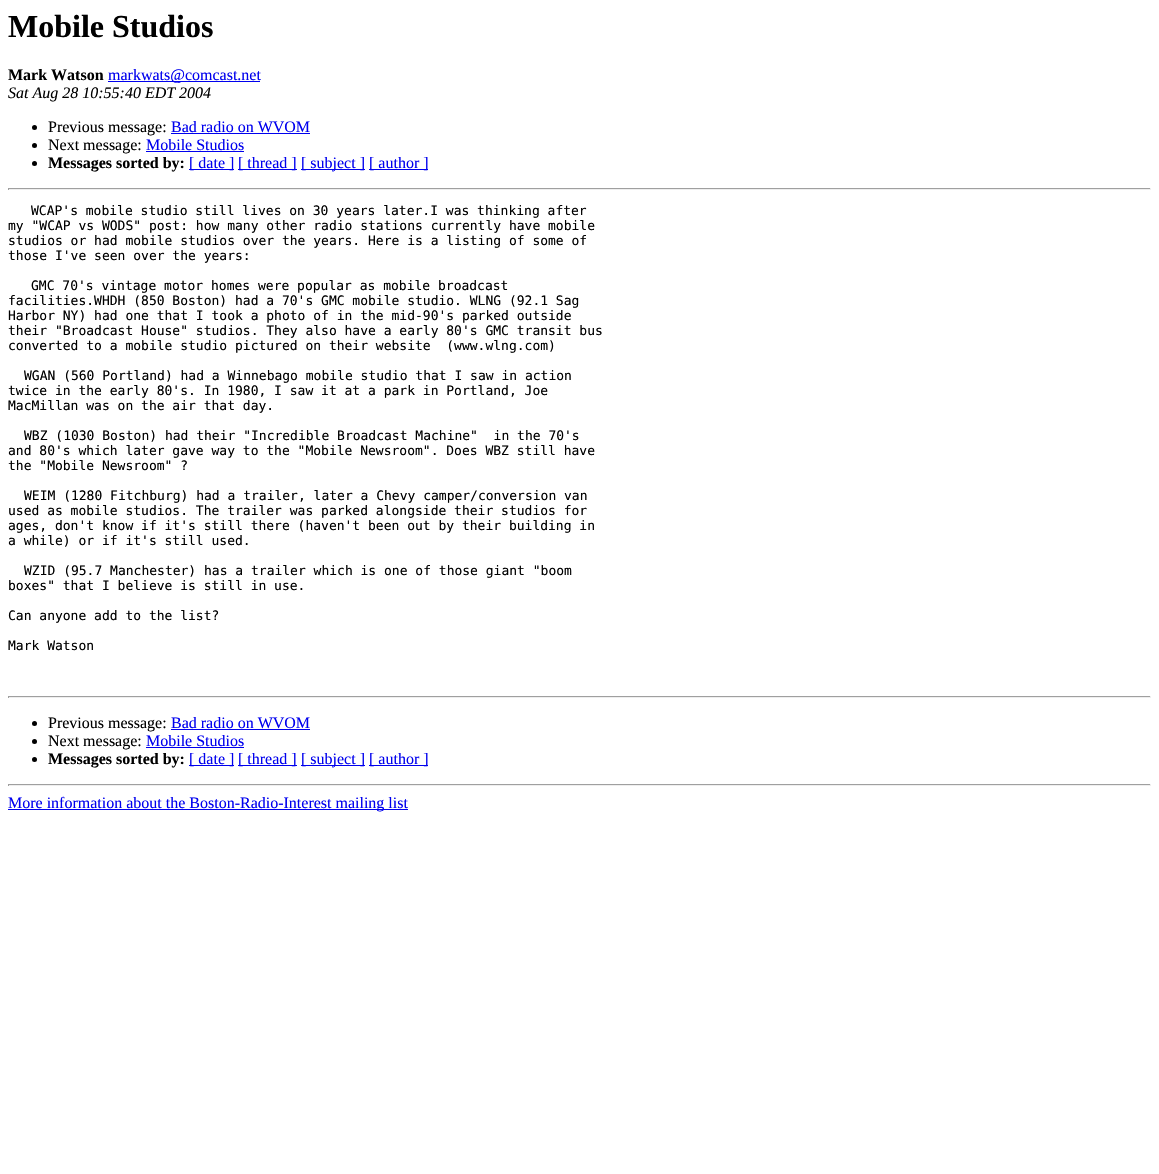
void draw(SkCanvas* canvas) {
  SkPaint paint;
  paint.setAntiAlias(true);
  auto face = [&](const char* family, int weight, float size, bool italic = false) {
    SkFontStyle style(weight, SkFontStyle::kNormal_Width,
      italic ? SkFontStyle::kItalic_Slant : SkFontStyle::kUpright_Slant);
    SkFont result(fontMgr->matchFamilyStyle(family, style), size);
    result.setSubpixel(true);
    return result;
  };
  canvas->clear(0xffffffff);
  paint.setColor(0xff0000ee);
  canvas->drawRect(SkRect::MakeXYWH(108, 81, 152, 1), paint);
  paint.setColor(0xff000000);
  canvas->drawCircle(34.5f, 127.5f, 2.5f, paint);
  paint.setColor(0xff0000ee);
  canvas->drawRect(SkRect::MakeXYWH(171, 133, 139, 1), paint);
  paint.setColor(0xff000000);
  canvas->drawCircle(34.5f, 145.5f, 2.5f, paint);
  paint.setColor(0xff0000ee);
  canvas->drawRect(SkRect::MakeXYWH(146, 151, 98, 1), paint);
  paint.setColor(0xff000000);
  canvas->drawCircle(34.5f, 163.5f, 2.5f, paint);
  {
    const struct { float x, y, w, h; SkColor color; } items[] = {
      {189, 169, 45, 1, 0xff0000ee},
      {238, 169, 59, 1, 0xff0000ee},
      {301, 169, 64, 1, 0xff0000ee},
      {369, 169, 59, 1, 0xff0000ee},
      {8, 188, 1143, 1, 0xff9f9f9f},
      {1150, 188, 1, 2, 0xffeeeeee},
      {8, 189, 1143, 1, 0xffeeeeee},
      {8, 188, 1, 2, 0xff9f9f9f},
      {8, 696, 1143, 1, 0xff9f9f9f},
      {1150, 696, 1, 2, 0xffeeeeee},
      {8, 697, 1143, 1, 0xffeeeeee},
      {8, 696, 1, 2, 0xff9f9f9f},
    };
    for (auto [x, y, w, h, color] : items) {
      paint.setColor(color);
      canvas->drawRect(SkRect::MakeXYWH(x, y, w, h), paint);
    }
  }
  paint.setColor(0xff000000);
  canvas->drawCircle(34.5f, 723.5f, 2.5f, paint);
  paint.setColor(0xff0000ee);
  canvas->drawRect(SkRect::MakeXYWH(171, 729, 139, 1), paint);
  paint.setColor(0xff000000);
  canvas->drawCircle(34.5f, 741.5f, 2.5f, paint);
  paint.setColor(0xff0000ee);
  canvas->drawRect(SkRect::MakeXYWH(146, 747, 98, 1), paint);
  paint.setColor(0xff000000);
  canvas->drawCircle(34.5f, 759.5f, 2.5f, paint);
  {
    const struct { float x, y, w, h; SkColor color; } items[] = {
      {189, 765, 45, 1, 0xff0000ee},
      {238, 765, 59, 1, 0xff0000ee},
      {301, 765, 64, 1, 0xff0000ee},
      {369, 765, 59, 1, 0xff0000ee},
      {8, 784, 1143, 1, 0xff9f9f9f},
      {1150, 784, 1, 2, 0xffeeeeee},
      {8, 785, 1143, 1, 0xffeeeeee},
      {8, 784, 1, 2, 0xff9f9f9f},
      {8, 809, 400, 1, 0xff0000ee},
    };
    for (auto [x, y, w, h, color] : items) {
      paint.setColor(color);
      canvas->drawRect(SkRect::MakeXYWH(x, y, w, h), paint);
    }
  }
  auto f0 = face("Liberation Serif", 700, 32);
  paint.setColor(0xff000000);
  canvas->drawString("Mobile Studios", 8, 37, f0, paint);
  auto f1 = face("Liberation Serif", 700, 16);
  canvas->drawString("Mark Watson", 8, 80, f1, paint);
  auto f2 = face("Liberation Serif", 400, 16);
  paint.setColor(0xff0000ee);
  canvas->drawString("markwats@comcast.net", 108, 80, f2, paint);
  auto f3 = face("Liberation Serif", 400, 16, true);
  paint.setColor(0xff000000);
  canvas->drawString("Sat Aug 28 10:55:40 EDT 2004", 8, 98, f3, paint);
  canvas->drawString("Previous message:", 48, 132, f2, paint);
  paint.setColor(0xff0000ee);
  canvas->drawString("Bad radio on WVOM", 171, 132, f2, paint);
  paint.setColor(0xff000000);
  canvas->drawString("Next message:", 48, 150, f2, paint);
  paint.setColor(0xff0000ee);
  canvas->drawString("Mobile Studios", 146, 150, f2, paint);
  paint.setColor(0xff000000);
  canvas->drawString("Messages sorted by:", 48, 168, f1, paint);
  paint.setColor(0xff0000ee);
  {
    const struct { const char* s; float x, y; } items[] = {
      {"[ date ]", 189, 168},
      {"[ thread ]", 238, 168},
      {"[ subject ]", 301, 168},
      {"[ author ]", 369, 168},
    };
    for (auto [s, x, y] : items) {
      canvas->drawString(s, x, y, f2, paint);
    }
  }
  auto f4 = face("DejaVu Sans Mono", 400, 13);
  paint.setColor(0xff000000);
  {
    const struct { const char* s; float x, y; } items[] = {
      {"WCAP's mobile studio still lives on 30 years later.I was thinking after", 31, 215},
      {"my \"WCAP vs WODS\" post: how many other radio stations currently have mobile", 8, 230},
      {"studios or had mobile studios over the years. Here is a listing of some of", 8, 245},
      {"those I've seen over the years:", 8, 260},
      {"GMC 70's vintage motor homes were popular as mobile broadcast", 31, 290},
      {"facilities.WHDH (850 Boston) had a 70's GMC mobile studio. WLNG (92.1 Sag", 8, 305},
      {"Harbor NY) had one that I took a photo of in the mid-90's parked outside", 8, 320},
      {"their \"Broadcast House\" studios. They also have a early 80's GMC transit bus", 8, 335},
      {"converted to a mobile studio pictured on their website  (www.wlng.com)", 8, 350},
      {"WGAN (560 Portland) had a Winnebago mobile studio that I saw in action", 24, 380},
      {"twice in the early 80's. In 1980, I saw it at a park in Portland, Joe", 8, 395},
      {"MacMillan was on the air that day.", 8, 410},
      {"WBZ (1030 Boston) had their \"Incredible Broadcast Machine\"  in the 70's", 24, 440},
      {"and 80's which later gave way to the \"Mobile Newsroom\". Does WBZ still have", 8, 455},
      {"the \"Mobile Newsroom\" ?", 8, 470},
      {"WEIM (1280 Fitchburg) had a trailer, later a Chevy camper/conversion van", 24, 500},
      {"used as mobile studios. The trailer was parked alongside their studios for", 8, 515},
      {"ages, don't know if it's still there (haven't been out by their building in", 8, 530},
      {"a while) or if it's still used.", 8, 545},
      {"WZID (95.7 Manchester) has a trailer which is one of those giant \"boom", 24, 575},
      {"boxes\" that I believe is still in use.", 8, 590},
      {"Can anyone add to the list?", 8, 620},
      {"Mark Watson", 8, 650},
    };
    for (auto [s, x, y] : items) {
      canvas->drawString(s, x, y, f4, paint);
    }
  }
  canvas->drawString("Previous message:", 48, 728, f2, paint);
  paint.setColor(0xff0000ee);
  canvas->drawString("Bad radio on WVOM", 171, 728, f2, paint);
  paint.setColor(0xff000000);
  canvas->drawString("Next message:", 48, 746, f2, paint);
  paint.setColor(0xff0000ee);
  canvas->drawString("Mobile Studios", 146, 746, f2, paint);
  paint.setColor(0xff000000);
  canvas->drawString("Messages sorted by:", 48, 764, f1, paint);
  paint.setColor(0xff0000ee);
  {
    const struct { const char* s; float x, y; } items[] = {
      {"[ date ]", 189, 764},
      {"[ thread ]", 238, 764},
      {"[ subject ]", 301, 764},
      {"[ author ]", 369, 764},
      {"More information about the Boston-Radio-Interest mailing list", 8, 808},
    };
    for (auto [s, x, y] : items) {
      canvas->drawString(s, x, y, f2, paint);
    }
  }
}
